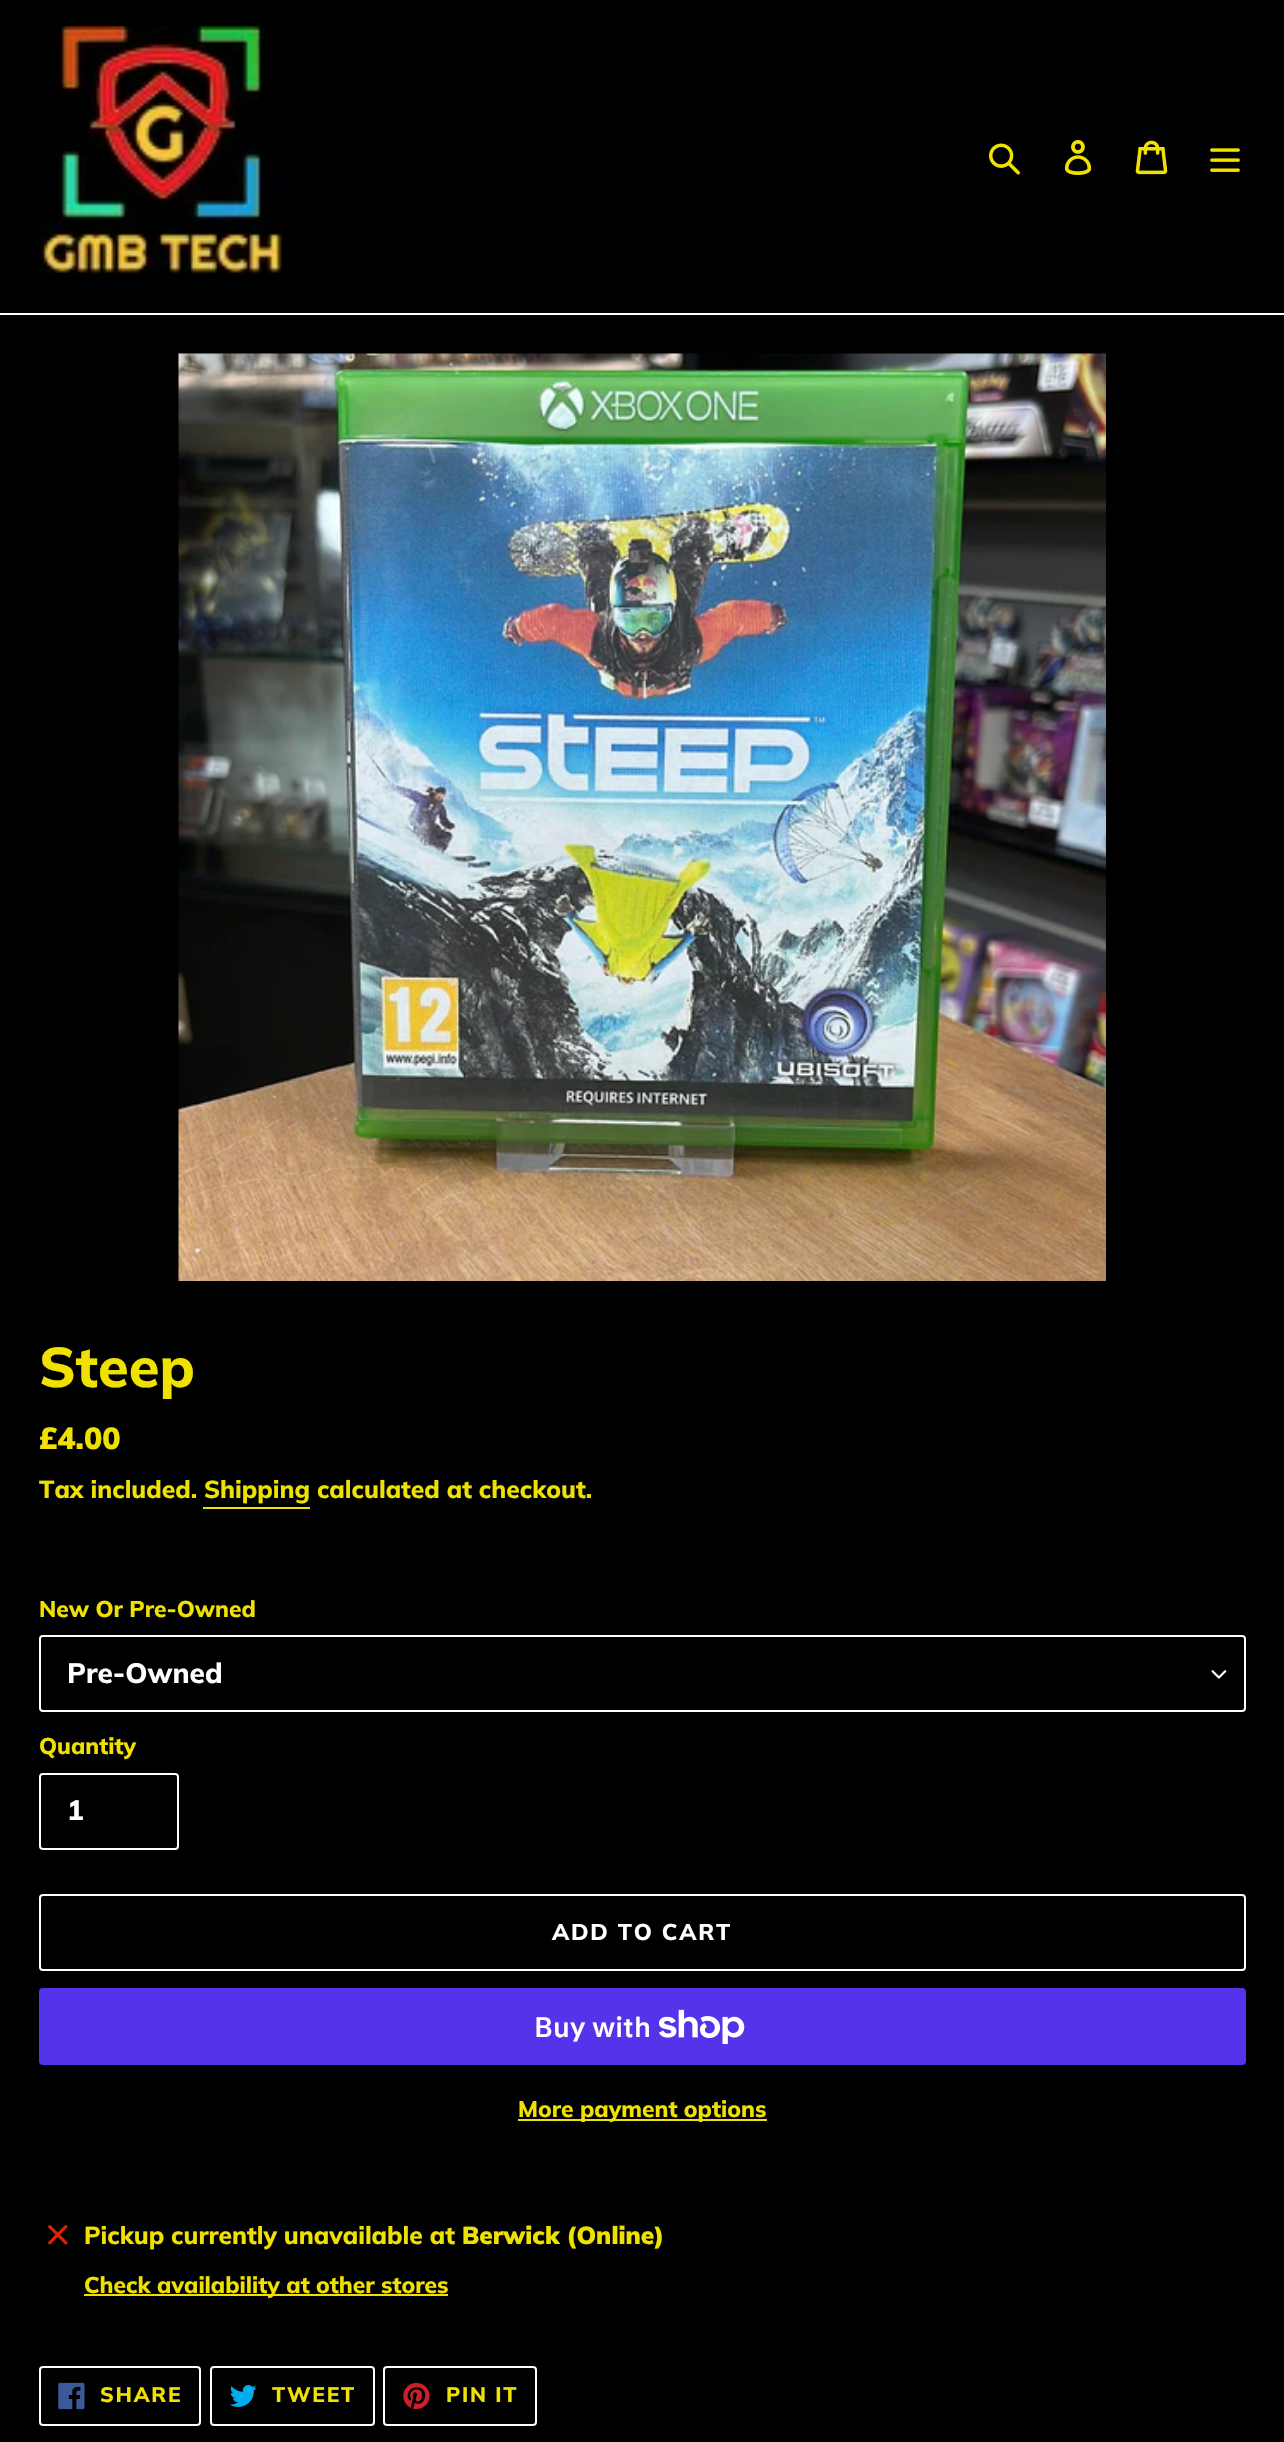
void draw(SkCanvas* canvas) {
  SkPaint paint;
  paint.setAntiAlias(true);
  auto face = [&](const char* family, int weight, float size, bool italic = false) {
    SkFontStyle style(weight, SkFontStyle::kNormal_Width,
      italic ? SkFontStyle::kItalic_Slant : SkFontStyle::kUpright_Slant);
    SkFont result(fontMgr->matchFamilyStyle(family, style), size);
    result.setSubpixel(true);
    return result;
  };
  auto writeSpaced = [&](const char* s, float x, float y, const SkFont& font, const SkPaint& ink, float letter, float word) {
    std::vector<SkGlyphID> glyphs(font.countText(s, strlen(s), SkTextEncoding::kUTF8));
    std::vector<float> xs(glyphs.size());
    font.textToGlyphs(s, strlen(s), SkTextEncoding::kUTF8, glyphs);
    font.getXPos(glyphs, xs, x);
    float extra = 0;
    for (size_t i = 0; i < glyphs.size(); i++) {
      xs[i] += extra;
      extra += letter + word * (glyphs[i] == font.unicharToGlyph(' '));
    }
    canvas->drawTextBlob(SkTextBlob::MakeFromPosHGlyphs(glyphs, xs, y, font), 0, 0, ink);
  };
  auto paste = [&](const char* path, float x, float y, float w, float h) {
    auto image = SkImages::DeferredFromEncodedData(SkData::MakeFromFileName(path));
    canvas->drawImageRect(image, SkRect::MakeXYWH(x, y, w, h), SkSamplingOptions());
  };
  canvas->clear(0xff000000);
  paint.setColor(0xffffffff);
  canvas->drawRect(SkRect::MakeXYWH(0, 313, 1284, 2), paint);
  paste("img/1.png", 38, 26, 246, 249);
  paste("img/2.png", 989, 143, 31, 32);
  paste("img/3.png", 1064, 140, 28, 35);
  paste("img/4.png", 1135, 140, 33, 35);
  paste("img/5.png", 1210, 148, 30, 24);
  paste("img/6.png", 178, 353, 928, 928);
  paint.setColor(0xffefe100);
  canvas->drawRect(SkRect::MakeXYWH(203, 1507, 107, 2), paint);
  paste("img/7.png", 1211, 1670, 16, 9);
  paint.setStroke(true);
  paint.setStrokeWidth(2);
  paint.setColor(0xffffffff);
  canvas->drawRoundRect(SkRect::MakeXYWH(40, 1636, 1205, 75), 3, 3, paint);
  canvas->drawRoundRect(SkRect::MakeXYWH(40, 1774, 138, 75), 3, 3, paint);
  canvas->drawRoundRect(SkRect::MakeXYWH(40, 1895, 1205, 75), 3, 3, paint);
  paint.setStroke(false);
  paint.setColor(0xff5433eb);
  canvas->drawRoundRect(SkRect::MakeXYWH(39, 1988, 1207, 77), 4, 4, paint);
  paste("img/8.png", 659, 2009, 86, 35);
  paint.setColor(0xffefe100);
  canvas->drawRect(SkRect::MakeXYWH(518, 2119, 249, 2), paint);
  paste("img/9.png", 48, 2225, 20, 20);
  canvas->drawRect(SkRect::MakeXYWH(84, 2294, 364, 2), paint);
  paint.setStroke(true);
  paint.setColor(0xffffffff);
  canvas->drawRoundRect(SkRect::MakeXYWH(40, 2367, 160, 58), 3, 3, paint);
  paste("img/10.png", 58, 2382, 27, 28);
  canvas->drawRoundRect(SkRect::MakeXYWH(211, 2367, 163, 58), 3, 3, paint);
  paste("img/11.png", 229, 2385, 28, 22);
  canvas->drawRoundRect(SkRect::MakeXYWH(384, 2367, 152, 58), 3, 3, paint);
  paste("img/12.png", 403, 2382, 27, 28);
  auto f0 = face("Muli", 800, 56);
  paint.setStroke(false);
  paint.setColor(0xffefe100);
  canvas->drawString("Steep", 39, 1387, f0, paint);
  auto f1 = face("Muli", 900, 30.5f);
  canvas->drawString("£4.00", 39, 1449, f1, paint);
  auto f2 = face("Muli", 800, 24.5f);
  canvas->drawString("Tax included. Shipping calculated at checkout.", 39, 1498, f2, paint);
  auto f3 = face("Muli", 800, 22.75f);
  canvas->drawString("New Or Pre-Owned", 39, 1617, f3, paint);
  auto f4 = face("Muli", 800, 28);
  paint.setColor(0xffffffff);
  canvas->drawString("Pre-Owned", 67, 1683, f4, paint);
  paint.setColor(0xffefe100);
  canvas->drawString("Quantity", 39, 1754, f3, paint);
  paint.setColor(0xffffffff);
  canvas->drawString("1", 67, 1820, f4, paint);
  writeSpaced("ADD TO CART", 552, 1940, f3, paint, 1.75f, 0);
  auto f5 = face("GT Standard", 600, 28);
  canvas->drawString("Buy with", 534, 2037, f5, paint);
  paint.setColor(0xffefe100);
  canvas->drawString("More payment options", 518, 2117, f3, paint);
  canvas->drawString("Pickup currently unavailable at", 84, 2244, f2, paint);
  auto f6 = face("Muli", 900, 24.5f);
  canvas->drawString("Berwick (Online)", 462, 2244, f6, paint);
  canvas->drawString("Check availability at other stores", 84, 2293, f3, paint);
  auto f7 = face("Muli", 800, 21);
  {
    const struct { const char* s; float x, y; } items[] = {
      {"SHARE", 100, 2402},
      {"TWEET", 272, 2402},
      {"PIN IT", 446, 2402},
    };
    for (auto [s, x, y] : items) {
      writeSpaced(s, x, y, f7, paint, 1.75f, 0);
    }
  }
}
